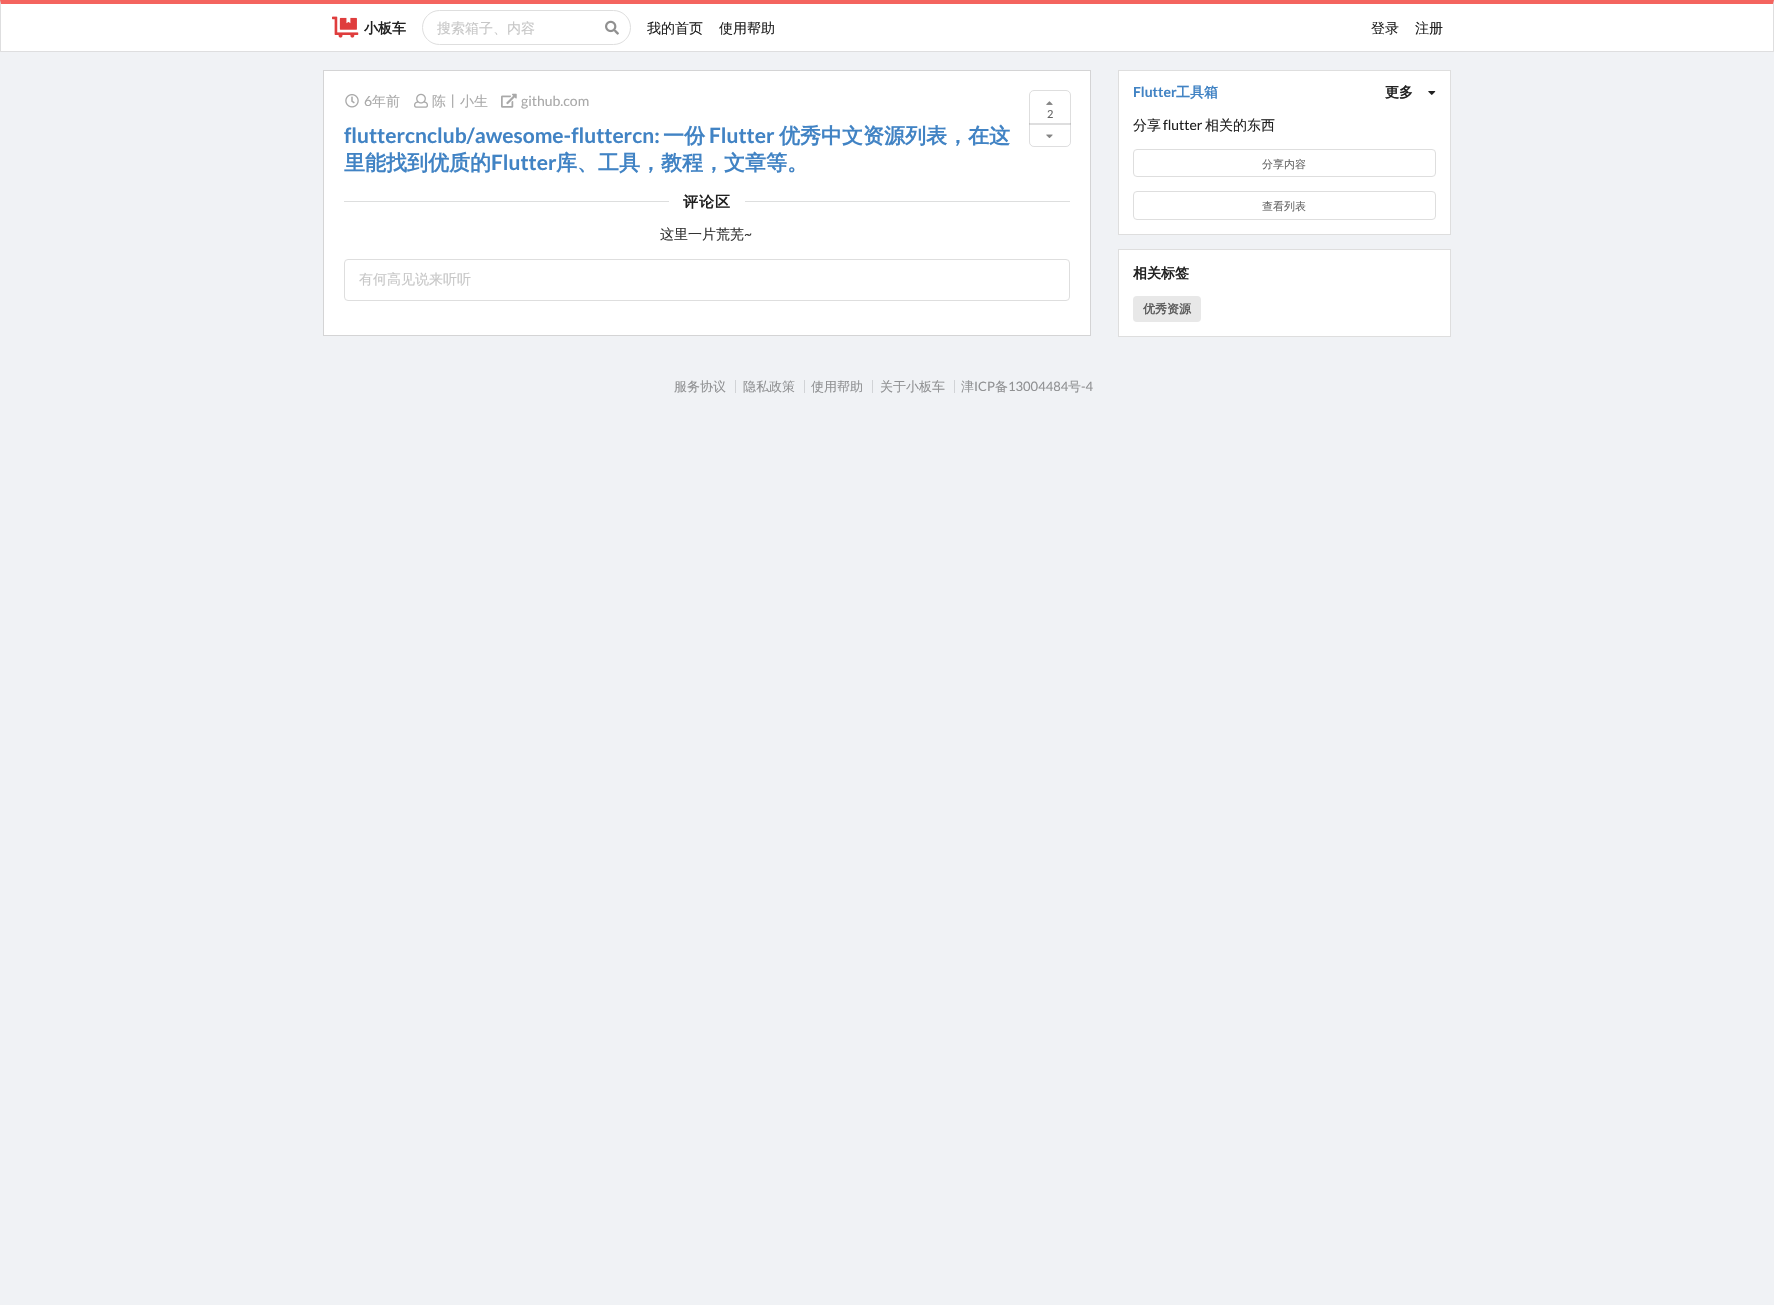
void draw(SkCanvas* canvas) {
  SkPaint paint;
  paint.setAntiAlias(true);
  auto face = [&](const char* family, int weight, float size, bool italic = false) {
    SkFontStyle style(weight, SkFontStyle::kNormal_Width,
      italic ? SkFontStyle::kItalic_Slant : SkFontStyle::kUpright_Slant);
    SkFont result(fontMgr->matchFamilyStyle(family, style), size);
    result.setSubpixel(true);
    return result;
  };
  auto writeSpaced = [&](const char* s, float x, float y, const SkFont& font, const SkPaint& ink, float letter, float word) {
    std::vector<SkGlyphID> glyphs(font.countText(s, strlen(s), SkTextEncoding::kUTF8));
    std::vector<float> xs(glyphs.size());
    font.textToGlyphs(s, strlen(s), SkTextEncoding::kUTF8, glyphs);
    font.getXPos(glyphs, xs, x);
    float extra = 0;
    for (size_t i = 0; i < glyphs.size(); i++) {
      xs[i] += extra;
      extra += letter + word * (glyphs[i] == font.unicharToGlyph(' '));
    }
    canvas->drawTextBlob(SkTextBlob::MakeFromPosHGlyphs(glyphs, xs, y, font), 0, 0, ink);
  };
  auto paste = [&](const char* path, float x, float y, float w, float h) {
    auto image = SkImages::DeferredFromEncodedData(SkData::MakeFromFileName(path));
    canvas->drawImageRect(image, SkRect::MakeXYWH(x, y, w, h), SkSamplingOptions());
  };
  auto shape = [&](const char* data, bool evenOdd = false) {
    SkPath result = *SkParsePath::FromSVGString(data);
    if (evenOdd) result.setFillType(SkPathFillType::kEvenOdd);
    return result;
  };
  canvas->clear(0xfff0f2f5);
  paint.setColor(0xffffffff);
  canvas->drawRect(SkRect::MakeXYWH(0, 0, 1774, 52), paint);
  paint.setColor(0xfff4645f);
  canvas->drawPath(shape("M0 0H1774L1773 4H1Z"), paint);
  paint.setColor(0x26222426);
  canvas->drawPath(shape("M1774 0V52L1773 51V4Z"), paint);
  canvas->drawPath(shape("M1774 52H0L1 51H1773Z"), paint);
  canvas->drawPath(shape("M0 52V0L1 4V51Z"), paint);
  paste("img/1.png", 332, 16, 27, 22);
  paint.setStroke(true);
  paint.setStrokeWidth(1);
  paint.setColor(0xffdedede);
  canvas->drawRoundRect(SkRect::MakeXYWH(422.5f, 10.5f, 208, 34), 17, 17, paint);
  paste("img/2.png", 605, 20, 14, 15);
  paint.setStroke(false);
  paint.setColor(0xffffffff);
  canvas->drawRect(SkRect::MakeXYWH(323.5f, 70.5f, 767, 265), paint);
  paint.setStroke(true);
  paint.setColor(0xffd4d4d5);
  canvas->drawRect(SkRect::MakeXYWH(323.5f, 70.5f, 767, 265), paint);
  paste("img/3.png", 345, 94, 14, 14);
  paste("img/4.png", 414, 93, 14, 15);
  paste("img/5.png", 501, 93, 16, 15);
  paint.setColor(0xffdedede);
  canvas->drawPath(shape("M1034 90.5H1066C1068.5 90.5 1070.5 92.5 1070.5 95V124.5H1029.5V95C1029.5 92.5 1031.5 90.5 1034 90.5Z"), paint);
  paste("img/6.png", 1046, 101, 7, 4);
  paint.setColor(0x26222426);
  canvas->drawPath(shape("M1029.5 123.5H1070.5V142C1070.5 144.5 1068.5 146.5 1066 146.5H1034C1031.5 146.5 1029.5 144.5 1029.5 142Z"), paint);
  paste("img/7.png", 1046, 134, 7, 4);
  paint.setStroke(false);
  paint.setColor(0xffdddede);
  canvas->drawRect(SkRect::MakeXYWH(344, 201, 325, 1), paint);
  canvas->drawRect(SkRect::MakeXYWH(745, 201, 325, 1), paint);
  paint.setStroke(true);
  paint.setColor(0xffdedede);
  canvas->drawRoundRect(SkRect::MakeXYWH(344.5f, 259.5f, 725, 41), 3.5f, 3.5f, paint);
  paint.setStroke(false);
  paint.setColor(0xffffffff);
  canvas->drawRect(SkRect::MakeXYWH(1118.5f, 70.5f, 332, 164), paint);
  paint.setStroke(true);
  paint.setColor(0xffdedede);
  canvas->drawRect(SkRect::MakeXYWH(1118.5f, 70.5f, 332, 164), paint);
  paste("img/8.png", 1428, 91, 8, 4);
  canvas->drawRoundRect(SkRect::MakeXYWH(1133.5f, 149.5f, 302, 27), 3.5f, 3.5f, paint);
  canvas->drawRoundRect(SkRect::MakeXYWH(1133.5f, 191.5f, 302, 28), 3.5f, 3.5f, paint);
  paint.setStroke(false);
  paint.setColor(0xffffffff);
  canvas->drawRect(SkRect::MakeXYWH(1118.5f, 249.5f, 332, 87), paint);
  paint.setStroke(true);
  paint.setColor(0xffdedede);
  canvas->drawRect(SkRect::MakeXYWH(1118.5f, 249.5f, 332, 87), paint);
  paint.setStroke(false);
  paint.setColor(0xffe8e8e8);
  canvas->drawRoundRect(SkRect::MakeXYWH(1133, 296, 68, 26), 4, 4, paint);
  {
    const struct { float x, y, w, h; SkColor color; } items[] = {
      {735, 380, 1, 13, 0xffd1d3d6},
      {804, 380, 1, 13, 0xffd1d3d6},
      {872, 380, 1, 13, 0xffd1d3d6},
      {954, 380, 1, 13, 0xffd1d3d6},
    };
    for (auto [x, y, w, h, color] : items) {
      paint.setColor(color);
      canvas->drawRect(SkRect::MakeXYWH(x, y, w, h), paint);
    }
  }
  auto f0 = face("WenQuanYi Zen Hei", 700, 14);
  paint.setColor(0xff212121);
  canvas->drawString("小板车", 364, 33, f0, paint);
  auto f1 = face("WenQuanYi Zen Hei", 500, 14);
  paint.setColor(0xffc7c7c7);
  canvas->drawString("搜索箱子、内容", 437, 33, f1, paint);
  paint.setColor(0xff212121);
  {
    const struct { const char* s; float x, y; } items[] = {
      {"我的首页", 647, 33},
      {"使用帮助", 719, 33},
      {"登录", 1371, 33},
      {"注册", 1415, 33},
    };
    for (auto [s, x, y] : items) {
      canvas->drawString(s, x, y, f1, paint);
    }
  }
  auto f2 = face("Lato", 400, 14);
  paint.setColor(0xffa9a9a9);
  canvas->drawString("6", 364, 106, f2, paint);
  canvas->drawString("年前", 372, 106, f1, paint);
  canvas->drawString("陈丨小生", 432, 106, f1, paint);
  canvas->drawString("github.com", 521, 106, f2, paint);
  auto f3 = face("Lato", 400, 11);
  paint.setColor(0xff666666);
  canvas->drawString("2", 1047, 118, f3, paint);
  auto f4 = face("Lato", 700, 21);
  paint.setColor(0xff4183c4);
  canvas->drawString("fluttercnclub/awesome-fluttercn:", 344, 143, f4, paint);
  auto f5 = face("WenQuanYi Zen Hei", 700, 21);
  canvas->drawString("一份", 663, 143, f5, paint);
  canvas->drawString("Flutter", 709, 143, f4, paint);
  canvas->drawString("优秀中文资源列表，在这", 779, 143, f5, paint);
  canvas->drawString("里能找到优质的", 344, 170, f5, paint);
  canvas->drawString("Flutter", 491, 170, f4, paint);
  canvas->drawString("库、工具，教程，文章等。", 556, 170, f5, paint);
  auto f6 = face("WenQuanYi Zen Hei", 700, 15);
  paint.setColor(0xff212121);
  writeSpaced("评论区", 683, 207, f6, paint, 1, 0);
  paint.setColor(0xff333333);
  canvas->drawString("这里一片荒芜", 660, 239, f1, paint);
  canvas->drawString("~", 744, 239, f2, paint);
  paint.setColor(0xffc7c7c7);
  canvas->drawString("有何高见说来听听", 359, 284, f1, paint);
  auto f7 = face("Lato", 700, 14);
  paint.setColor(0xff4183c4);
  canvas->drawString("Flutter", 1133, 97, f7, paint);
  canvas->drawString("工具箱", 1176, 97, f0, paint);
  paint.setColor(0xff212121);
  canvas->drawString("更多", 1385, 97, f0, paint);
  canvas->drawString("分享", 1133, 130, f1, paint);
  canvas->drawString("flutter", 1163, 130, f2, paint);
  canvas->drawString("相关的东西", 1205, 130, f1, paint);
  auto f8 = face("WenQuanYi Zen Hei", 500, 11);
  paint.setColor(0xff666666);
  canvas->drawString("分享内容", 1262, 168, f8, paint);
  canvas->drawString("查看列表", 1262, 210, f8, paint);
  paint.setColor(0xff212121);
  canvas->drawString("相关标签", 1133, 278, f0, paint);
  auto f9 = face("WenQuanYi Zen Hei", 700, 12);
  paint.setColor(0xff5d5d5d);
  canvas->drawString("优秀资源", 1143, 313, f9, paint);
  auto f10 = face("WenQuanYi Zen Hei", 500, 13);
  paint.setColor(0xff909193);
  {
    const struct { const char* s; float x, y; } items[] = {
      {"服务协议", 674, 391},
      {"隐私政策", 743, 391},
      {"使用帮助", 811, 391},
      {"关于小板车", 880, 391},
      {"津", 961, 391},
    };
    for (auto [s, x, y] : items) {
      canvas->drawString(s, x, y, f10, paint);
    }
  }
  auto f11 = face("Lato", 400, 13);
  canvas->drawString("ICP", 974, 391, f11, paint);
  canvas->drawString("备", 995, 391, f10, paint);
  canvas->drawString("13004484", 1008, 391, f11, paint);
  canvas->drawString("号", 1068, 391, f10, paint);
  canvas->drawString("-4", 1081, 391, f11, paint);
}
